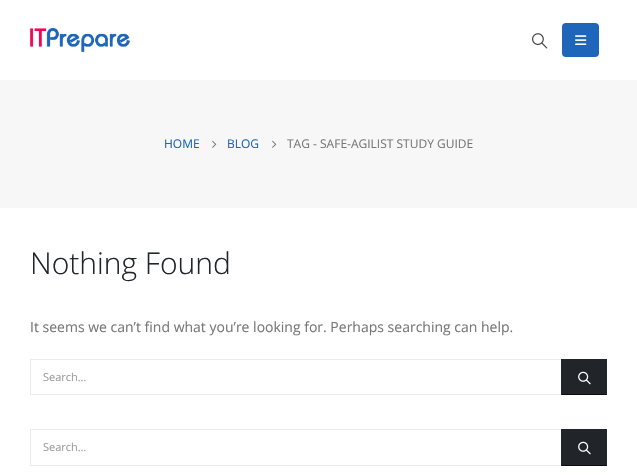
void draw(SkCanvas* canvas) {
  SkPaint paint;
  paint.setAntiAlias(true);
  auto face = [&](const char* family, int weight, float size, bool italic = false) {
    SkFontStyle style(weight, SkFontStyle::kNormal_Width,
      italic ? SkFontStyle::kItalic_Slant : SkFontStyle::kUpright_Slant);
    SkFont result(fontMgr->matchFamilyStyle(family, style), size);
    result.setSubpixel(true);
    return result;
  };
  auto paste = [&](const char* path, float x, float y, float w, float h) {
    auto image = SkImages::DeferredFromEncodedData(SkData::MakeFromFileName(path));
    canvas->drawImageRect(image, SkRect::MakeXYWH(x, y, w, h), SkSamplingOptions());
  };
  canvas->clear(0xffffffff);
  paste("img/1.png", 30, 28, 100, 24);
  paste("img/2.png", 532, 33, 16, 16);
  paint.setColor(0xff1d66ba);
  canvas->drawRoundRect(SkRect::MakeXYWH(562, 23, 37, 34), 4, 4, paint);
  paste("img/3.png", 575, 35, 12, 10);
  paint.setColor(0xfff7f7f7);
  canvas->drawRect(SkRect::MakeXYWH(0, 80, 637, 128), paint);
  paste("img/4.png", 212, 140, 5, 8);
  paste("img/4.png", 272, 140, 5, 8);
  paint.setStroke(true);
  paint.setStrokeWidth(1);
  paint.setColor(0xffebebeb);
  canvas->drawRect(SkRect::MakeXYWH(30.5f, 359.5f, 531, 35), paint);
  paint.setStroke(false);
  {
    const struct { float x, y, w, h; SkColor color; } items[] = {
      {562, 359, 45, 35, 0xff212529},
      {561, 394, 46, 1, 0xff0b0c0d},
      {561, 359, 1, 36, 0xff212529},
    };
    for (auto [x, y, w, h, color] : items) {
      paint.setColor(color);
      canvas->drawRect(SkRect::MakeXYWH(x, y, w, h), paint);
    }
  }
  paste("img/5.png", 578, 371, 13, 14);
  paint.setStroke(true);
  paint.setColor(0xffebebeb);
  canvas->drawRect(SkRect::MakeXYWH(30.5f, 429.5f, 531, 36), paint);
  paint.setStroke(false);
  {
    const struct { float x, y, w, h; SkColor color; } items[] = {
      {562, 429, 45, 36, 0xff212529},
      {561, 465, 46, 1, 0xff0b0c0d},
      {561, 429, 1, 37, 0xff212529},
    };
    for (auto [x, y, w, h, color] : items) {
      paint.setColor(color);
      canvas->drawRect(SkRect::MakeXYWH(x, y, w, h), paint);
    }
  }
  paste("img/5.png", 578, 441, 13, 14);
  auto f0 = face("Open Sans", 400, 12);
  paint.setColor(0xff1d66ba);
  canvas->drawString("HOME", 164, 148, f0, paint);
  canvas->drawString("BLOG", 227, 148, f0, paint);
  paint.setColor(0xff777777);
  canvas->drawString("TAG - SAFE-AGILIST STUDY GUIDE", 287, 148, f0, paint);
  auto f1 = face("Open Sans", 300, 30);
  paint.setColor(0xff212529);
  canvas->drawString("Nothing Found", 30, 274, f1, paint);
  auto f2 = face("Open Sans", 400, 14);
  paint.setColor(0xff777777);
  canvas->drawString("It seems we can’t find what you’re looking for. Perhaps searching can help.", 30, 332, f2, paint);
  auto f3 = face("Open Sans", 400, 11);
  paint.setColor(0xff999999);
  canvas->drawString("Search…", 43, 381, f3, paint);
  canvas->drawString("Search…", 43, 451, f3, paint);
}
